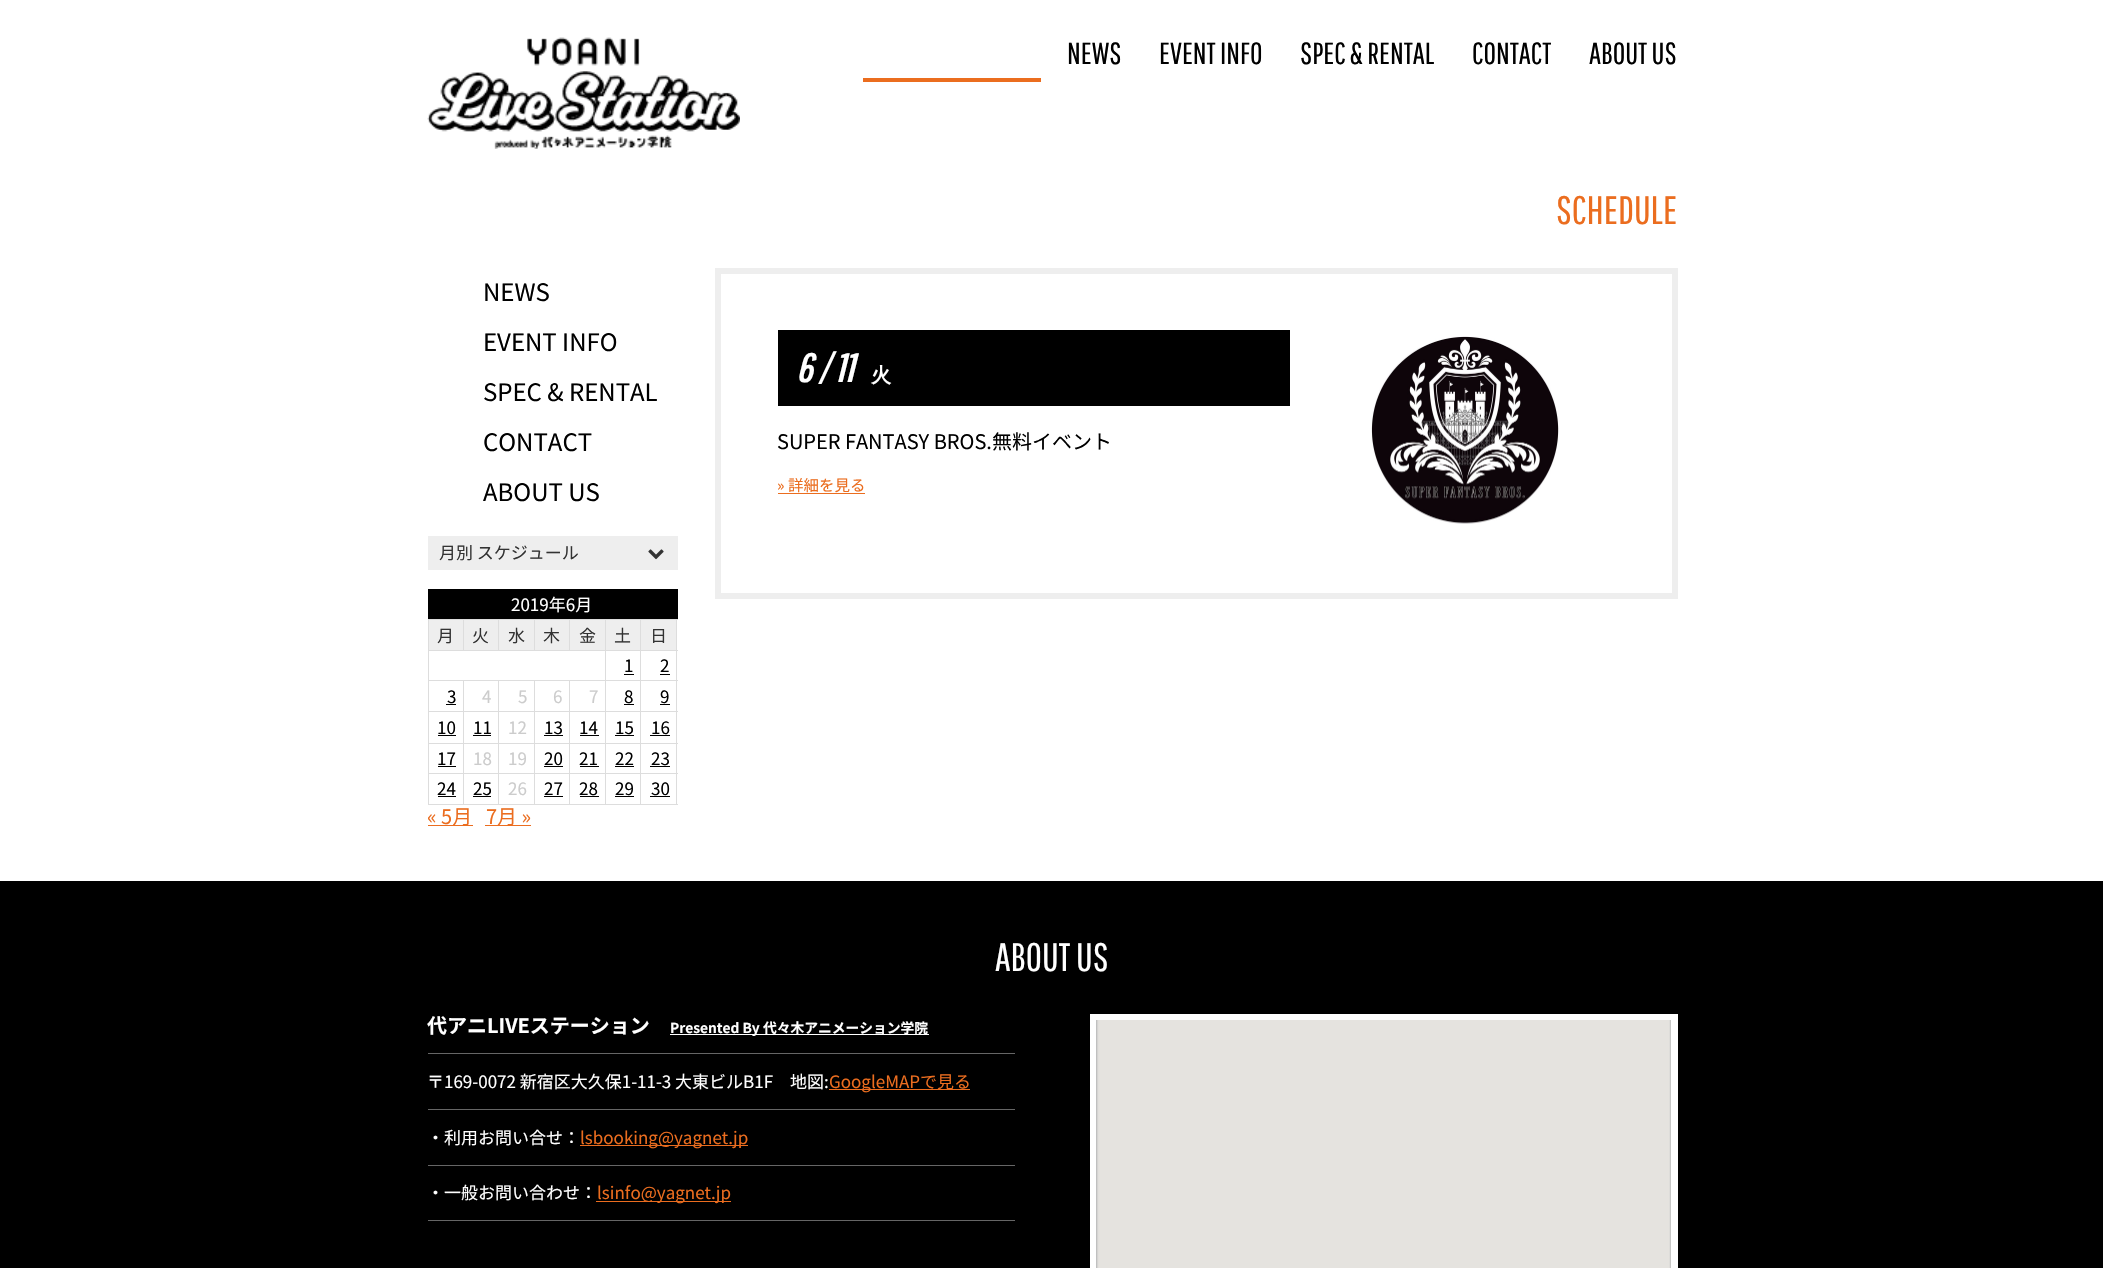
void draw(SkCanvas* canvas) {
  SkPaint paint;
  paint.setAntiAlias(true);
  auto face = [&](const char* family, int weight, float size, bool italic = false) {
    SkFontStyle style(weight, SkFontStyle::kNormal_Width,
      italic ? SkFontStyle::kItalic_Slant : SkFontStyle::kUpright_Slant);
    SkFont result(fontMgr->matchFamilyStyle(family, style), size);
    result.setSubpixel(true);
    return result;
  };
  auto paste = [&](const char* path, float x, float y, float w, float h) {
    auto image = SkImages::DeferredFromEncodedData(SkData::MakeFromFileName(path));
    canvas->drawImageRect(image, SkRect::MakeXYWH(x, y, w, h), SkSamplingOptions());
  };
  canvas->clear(0xffffffff);
  paste("img/1.png", 427, 37, 313, 112);
  paint.setColor(0xffeb6d1f);
  canvas->drawRect(SkRect::MakeXYWH(863, 78, 178, 4), paint);
  paint.setColor(0xffeeeeee);
  canvas->drawRect(SkRect::MakeXYWH(428, 536, 250, 34), paint);
  paste("img/2.png", 648, 549, 16, 11);
  {
    const struct { float x, y, w, h; SkColor color; } items[] = {
      {428, 589, 250, 30, 0xff000000},
      {429, 620, 34, 30, 0xffeeeeee},
      {640, 619, 38, 1, 0xffdddddd},
      {640, 650, 38, 1, 0xffdddddd},
      {640, 680, 38, 1, 0xffdddddd},
      {640, 711, 38, 1, 0xffdddddd},
      {640, 743, 38, 1, 0xffdddddd},
      {640, 773, 38, 1, 0xffdddddd},
      {676, 773, 1, 32, 0xffdddddd},
      {640, 804, 38, 1, 0xffdddddd},
      {640, 773, 1, 32, 0xffdddddd},
      {605, 773, 36, 1, 0xffdddddd},
      {640, 743, 1, 31, 0xffdddddd},
      {605, 743, 36, 1, 0xffdddddd},
      {640, 711, 1, 33, 0xffdddddd},
      {605, 711, 36, 1, 0xffdddddd},
      {640, 680, 1, 33, 0xffdddddd},
      {605, 680, 36, 1, 0xffdddddd},
      {640, 650, 1, 31, 0xffdddddd},
      {605, 650, 36, 1, 0xffdddddd},
      {640, 619, 1, 32, 0xffdddddd},
      {605, 619, 36, 1, 0xffdddddd},
      {605, 804, 36, 1, 0xffdddddd},
      {605, 773, 1, 32, 0xffdddddd},
      {569, 773, 37, 1, 0xffdddddd},
      {605, 743, 1, 31, 0xffdddddd},
      {569, 743, 37, 1, 0xffdddddd},
      {605, 711, 1, 33, 0xffdddddd},
      {569, 711, 37, 1, 0xffdddddd},
      {605, 680, 1, 33, 0xffdddddd},
      {569, 680, 37, 1, 0xffdddddd},
      {605, 650, 1, 31, 0xffdddddd},
      {428, 650, 178, 1, 0xffdddddd},
      {605, 619, 1, 32, 0xffdddddd},
      {569, 619, 37, 1, 0xffdddddd},
      {569, 619, 1, 32, 0xffdddddd},
      {534, 619, 36, 1, 0xffdddddd},
      {534, 619, 1, 32, 0xffdddddd},
      {498, 619, 37, 1, 0xffdddddd},
      {498, 619, 1, 32, 0xffdddddd},
      {463, 619, 36, 1, 0xffdddddd},
      {463, 619, 1, 32, 0xffdddddd},
      {428, 619, 36, 1, 0xffdddddd},
      {569, 804, 37, 1, 0xffdddddd},
      {569, 773, 1, 32, 0xffdddddd},
      {534, 773, 36, 1, 0xffdddddd},
      {569, 743, 1, 31, 0xffdddddd},
      {534, 743, 36, 1, 0xffdddddd},
      {569, 711, 1, 33, 0xffdddddd},
      {534, 711, 36, 1, 0xffdddddd},
      {569, 680, 1, 33, 0xffdddddd},
      {534, 680, 36, 1, 0xffdddddd},
      {534, 804, 36, 1, 0xffdddddd},
      {534, 773, 1, 32, 0xffdddddd},
      {498, 773, 37, 1, 0xffdddddd},
      {534, 743, 1, 31, 0xffdddddd},
      {498, 743, 37, 1, 0xffdddddd},
      {534, 711, 1, 33, 0xffdddddd},
      {498, 711, 37, 1, 0xffdddddd},
      {534, 680, 1, 33, 0xffdddddd},
      {498, 680, 37, 1, 0xffdddddd},
      {498, 804, 37, 1, 0xffdddddd},
      {498, 773, 1, 32, 0xffdddddd},
      {463, 773, 36, 1, 0xffdddddd},
      {498, 743, 1, 31, 0xffdddddd},
      {463, 743, 36, 1, 0xffdddddd},
      {498, 711, 1, 33, 0xffdddddd},
      {463, 711, 36, 1, 0xffdddddd},
      {498, 680, 1, 33, 0xffdddddd},
      {463, 680, 36, 1, 0xffdddddd},
      {463, 804, 36, 1, 0xffdddddd},
      {463, 773, 1, 32, 0xffdddddd},
      {428, 773, 36, 1, 0xffdddddd},
      {463, 743, 1, 31, 0xffdddddd},
      {428, 743, 36, 1, 0xffdddddd},
      {463, 711, 1, 33, 0xffdddddd},
      {428, 711, 36, 1, 0xffdddddd},
      {463, 680, 1, 33, 0xffdddddd},
      {428, 680, 36, 1, 0xffdddddd},
      {428, 804, 36, 1, 0xffdddddd},
      {428, 773, 1, 32, 0xffdddddd},
      {428, 743, 1, 31, 0xffdddddd},
      {428, 711, 1, 33, 0xffdddddd},
      {428, 680, 1, 33, 0xffdddddd},
      {428, 650, 1, 31, 0xffdddddd},
      {428, 619, 1, 32, 0xffdddddd},
      {464, 620, 34, 30, 0xffeeeeee},
      {499, 620, 35, 30, 0xffeeeeee},
      {535, 620, 34, 30, 0xffeeeeee},
      {570, 620, 35, 30, 0xffeeeeee},
      {606, 620, 34, 30, 0xffeeeeee},
      {641, 620, 35, 30, 0xffeeeeee},
      {676, 743, 1, 31, 0xffdddddd},
      {676, 711, 1, 33, 0xffdddddd},
      {676, 680, 1, 33, 0xffdddddd},
      {676, 650, 1, 31, 0xffdddddd},
      {676, 619, 1, 32, 0xffdddddd},
      {624, 674, 10, 1, 0xff000000},
      {660, 674, 10, 1, 0xff000000},
      {446, 704, 10, 1, 0xff000000},
      {624, 704, 10, 1, 0xff000000},
      {660, 704, 10, 1, 0xff000000},
      {438, 735, 18, 1, 0xff000000},
      {473, 735, 18, 1, 0xff000000},
      {544, 735, 19, 1, 0xff000000},
      {580, 735, 19, 1, 0xff000000},
      {615, 735, 19, 1, 0xff000000},
      {650, 735, 20, 1, 0xff000000},
      {438, 766, 18, 1, 0xff000000},
      {544, 766, 19, 1, 0xff000000},
      {580, 766, 19, 1, 0xff000000},
      {615, 766, 19, 1, 0xff000000},
      {650, 766, 20, 1, 0xff000000},
      {438, 796, 18, 1, 0xff000000},
      {473, 796, 18, 1, 0xff000000},
      {544, 796, 19, 1, 0xff000000},
      {580, 796, 19, 1, 0xff000000},
      {615, 796, 19, 1, 0xff000000},
      {650, 796, 20, 1, 0xff000000},
      {428, 825, 45, 1, 0xffeb6d1f},
      {485, 825, 46, 1, 0xffeb6d1f},
    };
    for (auto [x, y, w, h, color] : items) {
      paint.setColor(color);
      canvas->drawRect(SkRect::MakeXYWH(x, y, w, h), paint);
    }
  }
  paint.setStroke(true);
  paint.setStrokeWidth(6);
  paint.setColor(0xffeeeeee);
  canvas->drawRect(SkRect::MakeXYWH(718, 271, 957, 325), paint);
  paint.setStroke(false);
  paint.setColor(0xff000000);
  canvas->drawRect(SkRect::MakeXYWH(778, 330, 512, 76), paint);
  paint.setColor(0xffeb6d1f);
  canvas->drawRect(SkRect::MakeXYWH(778, 493, 87, 1), paint);
  paste("img/3.png", 1371, 336, 188, 188);
  {
    const struct { float x, y, w, h; SkColor color; } items[] = {
      {0, 881, 2103, 387, 0xff000000},
      {428, 1053, 587, 1, 0xff666666},
      {670, 1034, 259, 1, 0xffffffff},
      {428, 1109, 587, 1, 0xff666666},
      {829, 1089, 141, 1, 0xffeb6d1f},
      {428, 1165, 587, 1, 0xff666666},
      {580, 1145, 168, 1, 0xffeb6d1f},
      {428, 1220, 587, 1, 0xff666666},
      {596, 1201, 135, 1, 0xffeb6d1f},
      {1090, 1014, 588, 254, 0xffffffff},
    };
    for (auto [x, y, w, h, color] : items) {
      paint.setColor(color);
      canvas->drawRect(SkRect::MakeXYWH(x, y, w, h), paint);
    }
  }
  paste("img/4.png", 1096, 1020, 575, 248);
  auto f0 = face("Pathway Gothic One", 400, 30.5f);
  paint.setColor(0xff000000);
  {
    const struct { const char* s; float x, y; } items[] = {
      {"NEWS", 1067, 64},
      {"EVENT INFO", 1159, 64},
      {"SPEC & RENTAL", 1300, 64},
    };
    for (auto [s, x, y] : items) {
      canvas->drawString(s, x, y, f0, paint);
    }
  }
  canvas->save();
  canvas->clipRect(SkRect::MakeXYWH(1473, 38, 78, 27));
  canvas->drawString("CONTACT", 1472, 64, f0, paint);
  canvas->restore();
  canvas->drawString("ABOUT US", 1589, 64, f0, paint);
  auto f1 = face("Pathway Gothic One", 400, 39.5f);
  paint.setColor(0xffeb6d1f);
  canvas->drawString("SCHEDULE", 1556, 224, f1, paint);
  auto f2 = face("Noto Sans JP", 400, 24);
  paint.setColor(0xff000000);
  {
    const struct { const char* s; float x, y; } items[] = {
      {"NEWS", 483, 301},
      {"EVENT INFO", 483, 351},
      {"SPEC & RENTAL", 483, 401},
      {"CONTACT", 483, 451},
      {"ABOUT US", 483, 501},
    };
    for (auto [s, x, y] : items) {
      canvas->drawString(s, x, y, f2, paint);
    }
  }
  auto f3 = face("Noto Sans JP", 400, 17);
  paint.setColor(0xff333333);
  canvas->drawString("月別 スケジュール", 439, 559, f3, paint);
  paint.setColor(0xffffffff);
  canvas->drawString("2019年6月", 511, 611, f3, paint);
  paint.setColor(0xff333333);
  {
    const struct { const char* s; float x, y; } items[] = {
      {"月", 437, 642},
      {"火", 472, 642},
      {"水", 508, 642},
      {"木", 543, 642},
      {"金", 579, 642},
      {"土", 614, 642},
      {"日", 650, 642},
    };
    for (auto [s, x, y] : items) {
      canvas->drawString(s, x, y, f3, paint);
    }
  }
  paint.setColor(0xff000000);
  {
    const struct { const char* s; float x, y; } items[] = {
      {"1", 624, 672},
      {"2", 660, 672},
      {"3", 447, 703},
    };
    for (auto [s, x, y] : items) {
      canvas->drawString(s, x, y, f3, paint);
    }
  }
  paint.setColor(0xffcccccc);
  {
    const struct { const char* s; float x, y; } items[] = {
      {"4", 482, 703},
      {"5", 518, 703},
      {"6", 553, 703},
      {"7", 589, 703},
    };
    for (auto [s, x, y] : items) {
      canvas->drawString(s, x, y, f3, paint);
    }
  }
  paint.setColor(0xff000000);
  {
    const struct { const char* s; float x, y; } items[] = {
      {"8", 624, 703},
      {"9", 660, 703},
      {"10", 437, 734},
      {"11", 473, 734},
    };
    for (auto [s, x, y] : items) {
      canvas->drawString(s, x, y, f3, paint);
    }
  }
  paint.setColor(0xffcccccc);
  canvas->drawString("12", 508, 734, f3, paint);
  paint.setColor(0xff000000);
  {
    const struct { const char* s; float x, y; } items[] = {
      {"13", 544, 734},
      {"14", 579, 734},
      {"15", 615, 734},
      {"16", 651, 734},
      {"17", 437, 765},
    };
    for (auto [s, x, y] : items) {
      canvas->drawString(s, x, y, f3, paint);
    }
  }
  paint.setColor(0xffcccccc);
  canvas->drawString("18", 473, 765, f3, paint);
  canvas->drawString("19", 508, 765, f3, paint);
  paint.setColor(0xff000000);
  {
    const struct { const char* s; float x, y; } items[] = {
      {"20", 544, 765},
      {"21", 579, 765},
      {"22", 615, 765},
      {"23", 651, 765},
      {"24", 437, 795},
      {"25", 473, 795},
    };
    for (auto [s, x, y] : items) {
      canvas->drawString(s, x, y, f3, paint);
    }
  }
  paint.setColor(0xffcccccc);
  canvas->drawString("26", 508, 795, f3, paint);
  paint.setColor(0xff000000);
  {
    const struct { const char* s; float x, y; } items[] = {
      {"27", 544, 795},
      {"28", 579, 795},
      {"29", 615, 795},
      {"30", 651, 795},
    };
    for (auto [s, x, y] : items) {
      canvas->drawString(s, x, y, f3, paint);
    }
  }
  auto f4 = face("Noto Sans JP", 400, 20);
  paint.setColor(0xffeb6d1f);
  canvas->drawString("« 5月", 427, 824, f4, paint);
  canvas->drawString("7月 »", 486, 824, f4, paint);
  auto f5 = face("Pathway Gothic One", 700, 39.5f, true);
  paint.setColor(0xffffffff);
  canvas->drawString("6 / 11", 796, 382, f5, paint);
  auto f6 = face("WenQuanYi Zen Hei", 700, 20);
  canvas->drawString("火", 871, 382, f6, paint);
  paint.setColor(0xff000000);
  canvas->drawString("SUPER FANTASY BROS.無料イベント", 777, 449, f4, paint);
  auto f7 = face("Noto Sans JP", 400, 15.5f);
  paint.setColor(0xffeb6d1f);
  canvas->drawString("» 詳細を見る", 777, 491, f7, paint);
  paint.setColor(0xffffffff);
  canvas->drawString("ABOUT US", 995, 971, f1, paint);
  auto f8 = face("Noto Sans JP", 700, 20);
  canvas->drawString("代アニLIVEステーション", 427, 1033, f8, paint);
  auto f9 = face("Noto Sans JP", 700, 13.75f);
  canvas->drawString("Presented By 代々木アニメーション学院", 670, 1033, f9, paint);
  canvas->drawString("〒169-0072 新宿区大久保1-11-3 大東ビルB1F　地図:", 427, 1088, f3, paint);
  paint.setColor(0xffeb6d1f);
  canvas->drawString("GoogleMAPで見る", 829, 1088, f3, paint);
  paint.setColor(0xffffffff);
  canvas->drawString("・利用お問い合せ：", 427, 1144, f3, paint);
  paint.setColor(0xffeb6d1f);
  canvas->drawString("lsbooking@yagnet.jp", 580, 1144, f3, paint);
  paint.setColor(0xffffffff);
  canvas->drawString("・一般お問い合わせ：", 427, 1199, f3, paint);
  paint.setColor(0xffeb6d1f);
  canvas->drawString("lsinfo@yagnet.jp", 597, 1199, f3, paint);
}
